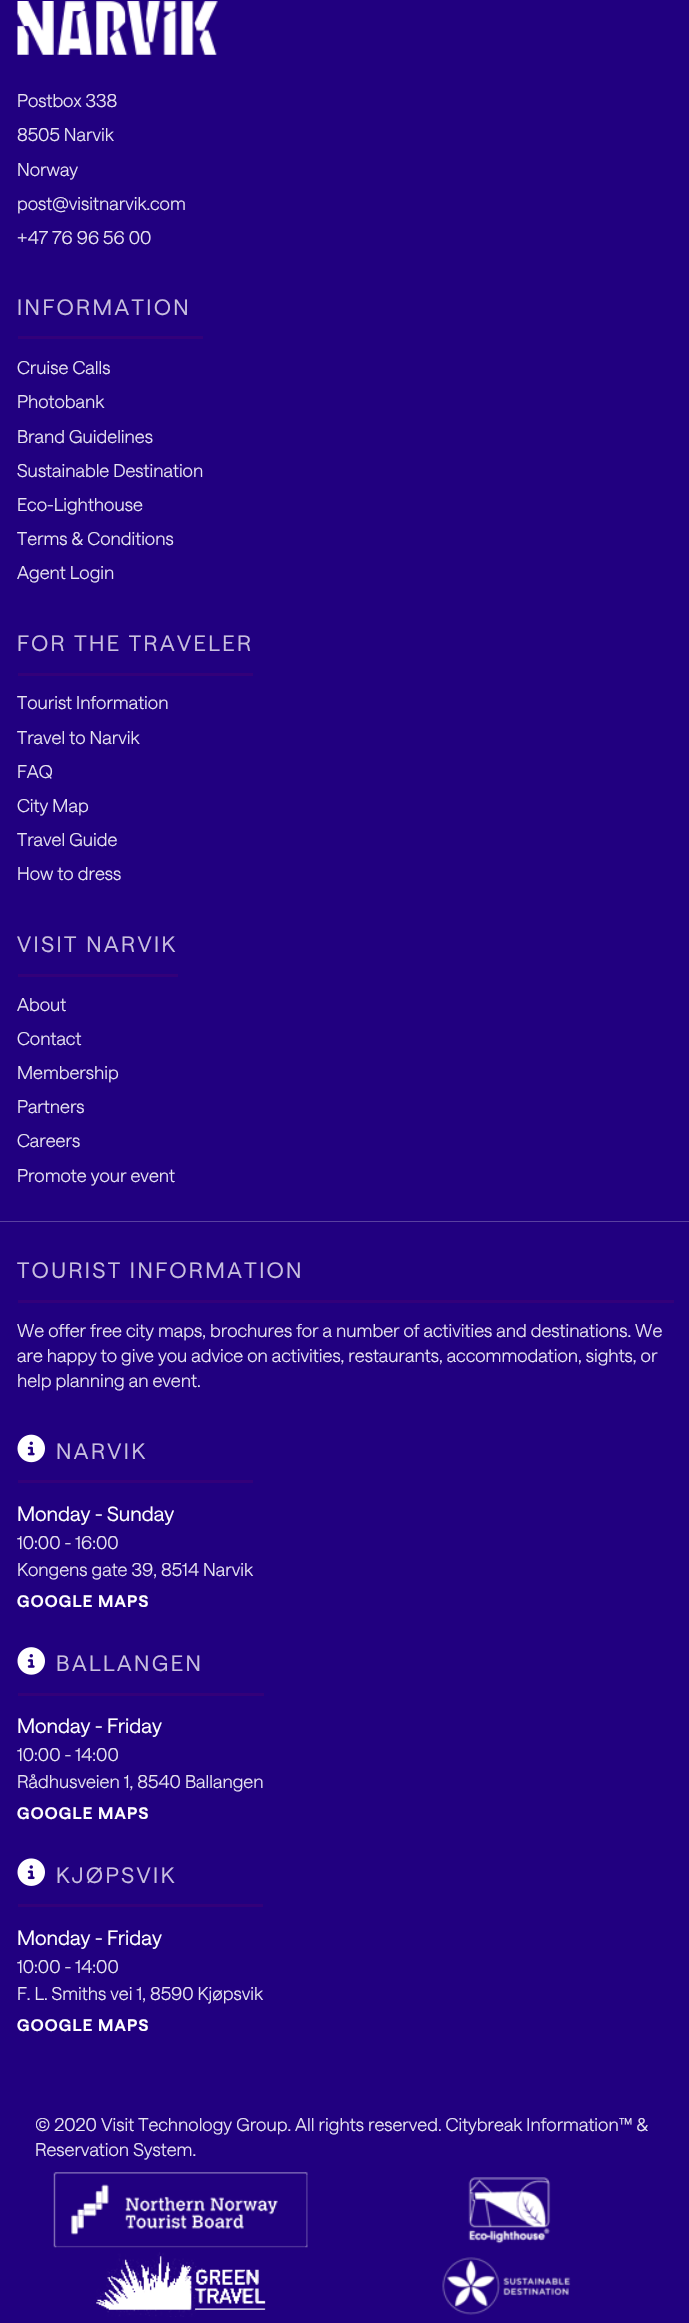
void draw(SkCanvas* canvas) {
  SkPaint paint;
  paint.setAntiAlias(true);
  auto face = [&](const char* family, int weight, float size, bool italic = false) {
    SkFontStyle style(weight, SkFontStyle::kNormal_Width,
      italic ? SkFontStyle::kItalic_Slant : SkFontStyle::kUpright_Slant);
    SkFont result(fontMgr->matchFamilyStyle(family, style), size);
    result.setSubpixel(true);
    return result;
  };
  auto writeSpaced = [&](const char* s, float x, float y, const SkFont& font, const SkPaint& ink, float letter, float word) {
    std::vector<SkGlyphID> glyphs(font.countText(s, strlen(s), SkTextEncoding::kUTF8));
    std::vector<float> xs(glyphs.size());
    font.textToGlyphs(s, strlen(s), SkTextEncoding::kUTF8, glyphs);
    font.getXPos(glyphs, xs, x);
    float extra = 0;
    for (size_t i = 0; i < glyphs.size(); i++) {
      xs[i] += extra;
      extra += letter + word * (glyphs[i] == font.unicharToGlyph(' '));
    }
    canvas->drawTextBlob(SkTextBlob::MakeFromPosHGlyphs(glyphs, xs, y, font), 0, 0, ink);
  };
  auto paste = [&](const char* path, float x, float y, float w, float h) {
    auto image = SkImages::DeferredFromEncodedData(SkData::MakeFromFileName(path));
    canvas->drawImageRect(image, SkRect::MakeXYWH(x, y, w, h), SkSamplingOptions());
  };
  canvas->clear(0xff210080);
  paste("img/1.png", 17, 1, 201, 54);
  {
    const struct { float x, y, w, h; SkColor color; } items[] = {
      {18, 336, 185, 3, 0xff33007a},
      {18, 673, 235, 3, 0xff33007a},
      {18, 974, 160, 3, 0xff33007a},
      {0, 1221, 689, 1, 0xff5940a0},
      {18, 1300, 656, 3, 0xff33007a},
    };
    for (auto [x, y, w, h, color] : items) {
      paint.setColor(color);
      canvas->drawRect(SkRect::MakeXYWH(x, y, w, h), paint);
    }
  }
  paste("img/2.png", 17, 1434, 28, 29);
  canvas->drawRect(SkRect::MakeXYWH(18, 1480, 235, 3), paint);
  paste("img/3.png", 17, 1647, 28, 28);
  canvas->drawRect(SkRect::MakeXYWH(18, 1693, 246, 3), paint);
  paste("img/4.png", 17, 1858, 28, 28);
  canvas->drawRect(SkRect::MakeXYWH(18, 1904, 245, 3), paint);
  paste("img/5.png", 53, 2172, 255, 76);
  paste("img/6.png", 468, 2177, 83, 67);
  paste("img/7.png", 96, 2252, 170, 65);
  paste("img/8.png", 442, 2257, 129, 58);
  auto f0 = face("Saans", 300, 18);
  paint.setColor(0xffe9e6f2);
  {
    const struct { const char* s; float x, y; } items[] = {
      {"Postbox 338", 17, 107},
      {"8505 Narvik", 17, 141},
      {"Norway", 17, 176},
      {"post@visitnarvik.com", 17, 210},
      {"+47 76 96 56 00", 17, 244},
    };
    for (auto [s, x, y] : items) {
      canvas->drawString(s, x, y, f0, paint);
    }
  }
  auto f1 = face("Saans", 400, 21.6f);
  paint.setColor(0xffc8bfdf);
  writeSpaced("INFORMATION", 17, 315, f1, paint, 2.5f, 0);
  paint.setColor(0xffe9e6f2);
  {
    const struct { const char* s; float x, y; } items[] = {
      {"Cruise Calls", 17, 374},
      {"Photobank", 17, 408},
      {"Brand Guidelines", 17, 443},
      {"Sustainable Destination", 17, 477},
      {"Eco-Lighthouse", 17, 511},
      {"Terms & Conditions", 17, 545},
      {"Agent Login", 17, 579},
    };
    for (auto [s, x, y] : items) {
      canvas->drawString(s, x, y, f0, paint);
    }
  }
  paint.setColor(0xffc8bfdf);
  writeSpaced("FOR THE TRAVELER", 17, 651, f1, paint, 2.5f, 0);
  paint.setColor(0xffe9e6f2);
  {
    const struct { const char* s; float x, y; } items[] = {
      {"Tourist Information", 17, 709},
      {"Travel to Narvik", 17, 744},
      {"FAQ", 17, 778},
      {"City Map", 17, 812},
      {"Travel Guide", 17, 846},
      {"How to dress", 17, 880},
    };
    for (auto [s, x, y] : items) {
      canvas->drawString(s, x, y, f0, paint);
    }
  }
  paint.setColor(0xffc8bfdf);
  writeSpaced("VISIT NARVIK", 17, 952, f1, paint, 2.5f, 0);
  paint.setColor(0xffe9e6f2);
  {
    const struct { const char* s; float x, y; } items[] = {
      {"About", 17, 1011},
      {"Contact", 17, 1045},
      {"Membership", 17, 1079},
      {"Partners", 17, 1113},
      {"Careers", 17, 1147},
      {"Promote your event", 17, 1182},
    };
    for (auto [s, x, y] : items) {
      canvas->drawString(s, x, y, f0, paint);
    }
  }
  paint.setColor(0xffc8bfdf);
  writeSpaced("TOURIST INFORMATION", 17, 1278, f1, paint, 2.5f, 0);
  paint.setColor(0xffe9e6f2);
  {
    const struct { const char* s; float x, y; } items[] = {
      {"We offer free city maps, brochures for a number of activities and destinations. We", 17, 1337},
      {"are happy to give you advice on activities, restaurants, accommodation, sights, or", 17, 1362},
      {"help planning an event.", 17, 1387},
    };
    for (auto [s, x, y] : items) {
      canvas->drawString(s, x, y, f0, paint);
    }
  }
  paint.setColor(0xffc8bfdf);
  writeSpaced("NARVIK", 56, 1459, f1, paint, 2.5f, 0);
  auto f2 = face("Saans", 400, 20);
  paint.setColor(0xffffffff);
  canvas->drawString("Monday - Sunday", 17, 1521, f2, paint);
  paint.setColor(0xffe9e6f2);
  canvas->drawString("10:00 - 16:00", 17, 1549, f0, paint);
  canvas->drawString("Kongens gate 39, 8514 Narvik", 17, 1576, f0, paint);
  auto f3 = face("Saans", 600, 16.25f);
  paint.setColor(0xffffffff);
  writeSpaced("GOOGLE MAPS", 17, 1607, f3, paint, 1.25f, 0);
  paint.setColor(0xffc8bfdf);
  writeSpaced("BALLANGEN", 56, 1671, f1, paint, 2.5f, 0);
  paint.setColor(0xffffffff);
  canvas->drawString("Monday - Friday", 17, 1733, f2, paint);
  paint.setColor(0xffe9e6f2);
  canvas->drawString("10:00 - 14:00", 17, 1761, f0, paint);
  canvas->drawString("Rådhusveien 1, 8540 Ballangen", 17, 1788, f0, paint);
  paint.setColor(0xffffffff);
  writeSpaced("GOOGLE MAPS", 17, 1819, f3, paint, 1.25f, 0);
  paint.setColor(0xffc8bfdf);
  writeSpaced("KJØPSVIK", 56, 1883, f1, paint, 2.5f, 0);
  paint.setColor(0xffffffff);
  canvas->drawString("Monday - Friday", 17, 1945, f2, paint);
  paint.setColor(0xffe9e6f2);
  canvas->drawString("10:00 - 14:00", 17, 1973, f0, paint);
  canvas->drawString("F. L. Smiths vei 1, 8590 Kjøpsvik", 17, 2000, f0, paint);
  paint.setColor(0xffffffff);
  writeSpaced("GOOGLE MAPS", 17, 2031, f3, paint, 1.25f, 0);
  paint.setColor(0xffe9e6f2);
  canvas->drawString("© 2020 Visit Technology Group. All rights reserved. Citybreak Information™ &", 35, 2131, f0, paint);
  canvas->drawString("Reservation System.", 35, 2156, f0, paint);
}
